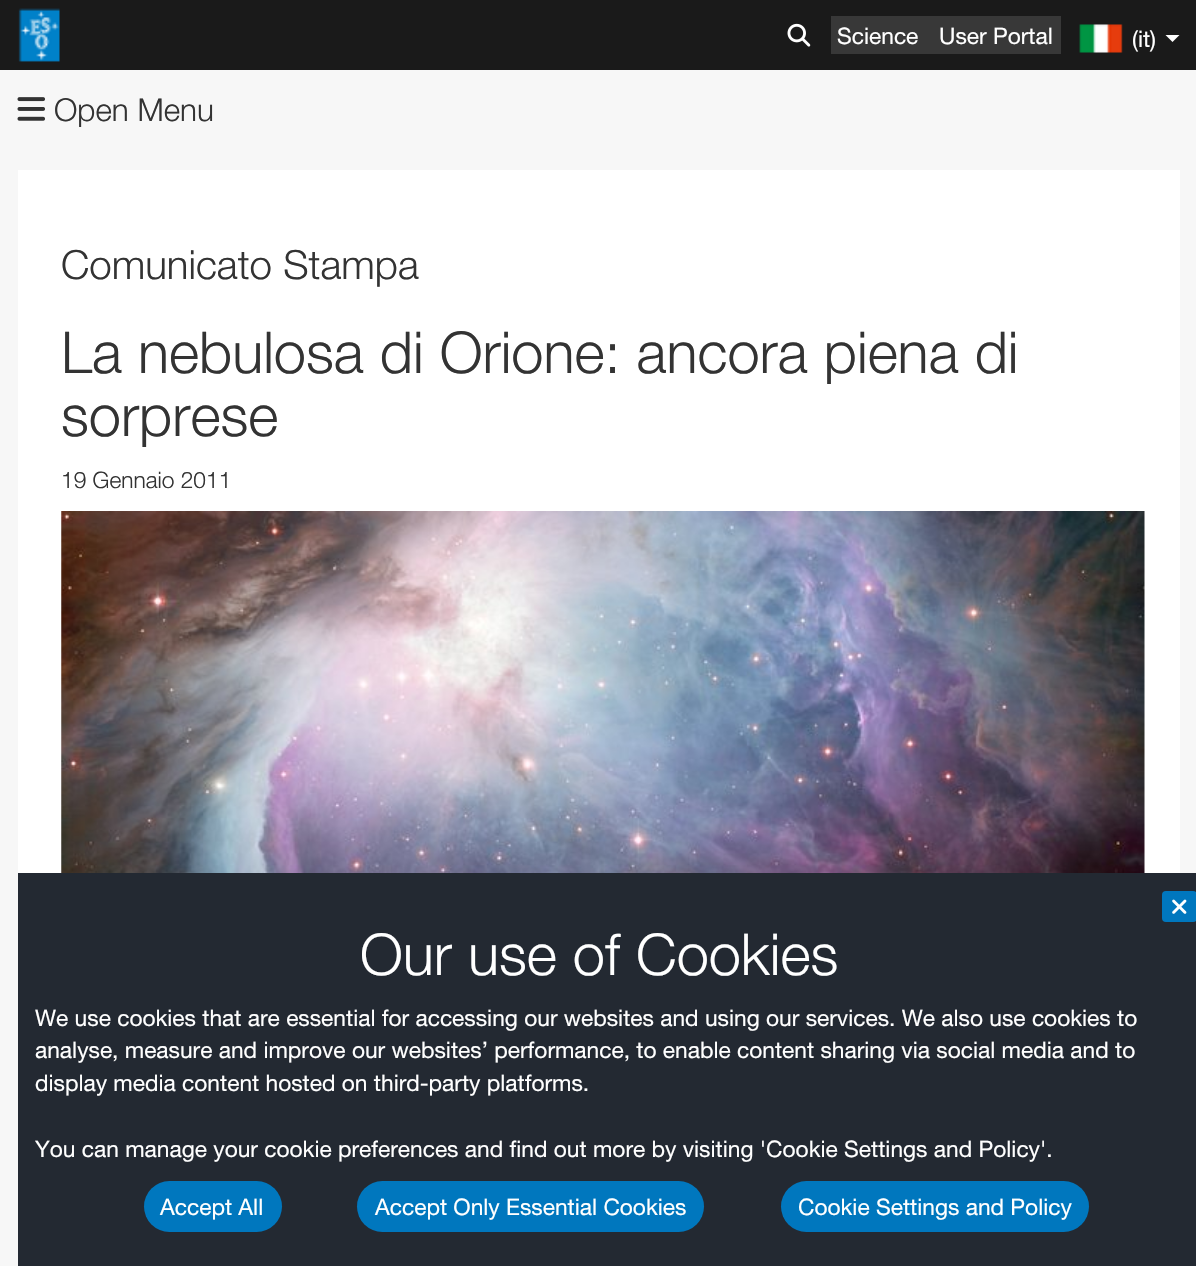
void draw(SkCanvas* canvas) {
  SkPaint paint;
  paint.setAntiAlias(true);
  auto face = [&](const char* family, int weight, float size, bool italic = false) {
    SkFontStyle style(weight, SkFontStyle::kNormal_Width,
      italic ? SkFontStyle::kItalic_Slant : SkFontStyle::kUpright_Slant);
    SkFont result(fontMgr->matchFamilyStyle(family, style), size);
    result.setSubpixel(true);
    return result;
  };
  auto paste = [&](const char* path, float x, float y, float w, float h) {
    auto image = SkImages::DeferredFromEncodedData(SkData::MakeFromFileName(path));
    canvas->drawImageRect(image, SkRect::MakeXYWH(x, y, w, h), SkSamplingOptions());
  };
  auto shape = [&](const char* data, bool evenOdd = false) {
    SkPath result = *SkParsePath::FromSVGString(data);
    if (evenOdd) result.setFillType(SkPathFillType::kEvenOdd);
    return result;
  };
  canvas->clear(0xfff7f7f7);
  paint.setColor(0xff1a1a1a);
  canvas->drawRect(SkRect::MakeXYWH(0, 0, 1196, 70), paint);
  paste("img/1.png", 18, 8, 42, 54);
  paste("img/2.png", 787, 23, 24, 24);
  paint.setColor(0xff383838);
  canvas->drawRect(SkRect::MakeXYWH(831, 16, 230, 38), paint);
  paste("img/3.png", 1079, 24, 44, 29);
  paint.setColor(0xffffffff);
  canvas->drawPath(shape("M1165.5 35H1179.5L1172.5 42Z"), paint);
  paste("img/4.png", 17, 97, 28, 24);
  canvas->drawRect(SkRect::MakeXYWH(18, 170, 1162, 703), paint);
  paste("img/5.png", 61, 511, 1084, 362);
  paint.setColor(0xff232932);
  canvas->drawRect(SkRect::MakeXYWH(18, 873, 1178, 393), paint);
  paint.setColor(0xff0077be);
  canvas->drawRoundRect(SkRect::MakeXYWH(1162, 891, 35, 31), 4, 4, paint);
  paste("img/6.png", 1172, 899, 15, 15);
  canvas->drawRoundRect(SkRect::MakeXYWH(144, 1181, 138, 51), 25.5f, 25.5f, paint);
  canvas->drawRoundRect(SkRect::MakeXYWH(357, 1181, 347, 51), 25.5f, 25.5f, paint);
  canvas->drawRoundRect(SkRect::MakeXYWH(781, 1181, 308, 51), 25.5f, 25.5f, paint);
  auto f0 = face("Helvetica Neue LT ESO", 400, 22.75f);
  paint.setColor(0xffffffff);
  {
    const struct { const char* s; float x, y; } items[] = {
      {"Science", 837, 44},
      {"User Portal", 939, 44},
      {"(it)", 1132, 47},
    };
    for (auto [s, x, y] : items) {
      canvas->drawString(s, x, y, f0, paint);
    }
  }
  auto f1 = face("Helvetica Neue LT ESO", 300, 31.5f);
  paint.setColor(0xff333333);
  canvas->drawString("Open Menu", 54, 121, f1, paint);
  auto f2 = face("Helvetica Neue LT ESO", 300, 40.25f);
  canvas->drawString("Comunicato Stampa", 61, 279, f2, paint);
  auto f3 = face("Helvetica Neue LT ESO", 300, 57.75f);
  canvas->drawString("La nebulosa di Orione: ancora piena di", 61, 373, f3, paint);
  canvas->drawString("sorprese", 61, 436, f3, paint);
  auto f4 = face("Helvetica Neue LT ESO", 300, 22.75f);
  canvas->drawString("19 Gennaio 2011", 61, 488, f4, paint);
  paint.setColor(0xffffffff);
  canvas->drawString("Our use of Cookies", 360, 975, f3, paint);
  {
    const struct { const char* s; float x, y; } items[] = {
      {"We use cookies that are essential for accessing our websites and using our services. We also use cookies to", 35, 1026},
      {"analyse, measure and improve our websites’ performance, to enable content sharing via social media and to", 35, 1058},
      {"display media content hosted on third-party platforms.", 35, 1091},
      {"You can manage your cookie preferences and find out more by visiting 'Cookie Settings and Policy'.", 35, 1157},
      {"Accept All", 160, 1215},
      {"Accept Only Essential Cookies", 375, 1215},
      {"Cookie Settings and Policy", 798, 1215},
    };
    for (auto [s, x, y] : items) {
      canvas->drawString(s, x, y, f0, paint);
    }
  }
}
